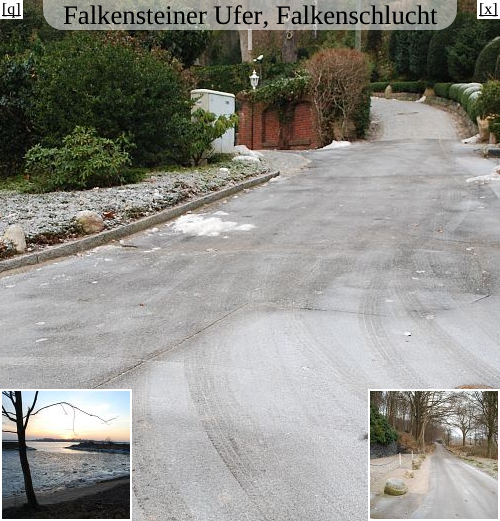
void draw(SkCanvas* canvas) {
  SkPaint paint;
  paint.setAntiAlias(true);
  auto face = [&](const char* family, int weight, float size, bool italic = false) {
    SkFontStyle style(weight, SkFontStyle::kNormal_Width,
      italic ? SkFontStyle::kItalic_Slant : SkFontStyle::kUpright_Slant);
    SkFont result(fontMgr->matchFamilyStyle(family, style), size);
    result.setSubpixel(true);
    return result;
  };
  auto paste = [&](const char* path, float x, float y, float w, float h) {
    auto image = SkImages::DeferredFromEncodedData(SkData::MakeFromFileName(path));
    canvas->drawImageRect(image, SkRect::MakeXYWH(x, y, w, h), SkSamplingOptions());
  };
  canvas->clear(0xffffffff);
  paste("img/1.png", 0, 0, 500, 521);
  paint.setColor(0xffffffff);
  canvas->drawRect(SkRect::MakeXYWH(0, 0, 23, 19), paint);
  paint.setColor(0xff000000);
  canvas->drawRect(SkRect::MakeXYWH(2, 15, 19, 1), paint);
  paste("img/2.png", 43, 0, 414, 30);
  {
    const struct { float x, y, w, h; SkColor color; } items[] = {
      {248, 29, 4, 21, 0x80ffffff},
      {477, 0, 23, 19, 0xffffffff},
      {479, 15, 19, 1, 0xff000000},
    };
    for (auto [x, y, w, h, color] : items) {
      paint.setColor(color);
      canvas->drawRect(SkRect::MakeXYWH(x, y, w, h), paint);
    }
  }
  paint.setStroke(true);
  paint.setStrokeWidth(2);
  paint.setColor(0xffffffff);
  canvas->drawRect(SkRect::MakeXYWH(1, 390, 130, 130), paint);
  paste("img/3.png", 2, 391, 128, 128);
  canvas->drawRect(SkRect::MakeXYWH(369, 390, 130, 130), paint);
  paste("img/4.png", 370, 391, 128, 128);
  auto f0 = face("Liberation Serif", 400, 16);
  paint.setStroke(false);
  paint.setColor(0xff000000);
  canvas->drawString("[q]", 2, 14, f0, paint);
  auto f1 = face("Liberation Serif", 400, 26.7f);
  canvas->drawString("Falkensteiner Ufer, Falkenschlucht", 63, 24, f1, paint);
  canvas->drawString("[x]", 479, 14, f0, paint);
}
